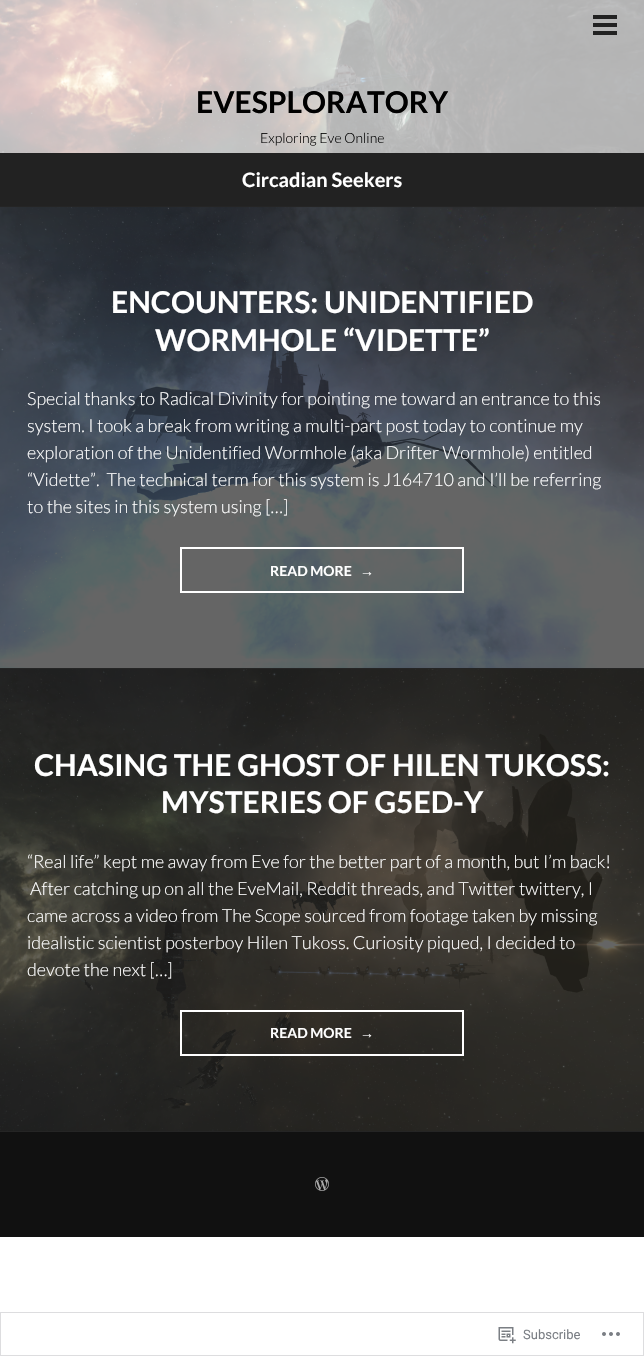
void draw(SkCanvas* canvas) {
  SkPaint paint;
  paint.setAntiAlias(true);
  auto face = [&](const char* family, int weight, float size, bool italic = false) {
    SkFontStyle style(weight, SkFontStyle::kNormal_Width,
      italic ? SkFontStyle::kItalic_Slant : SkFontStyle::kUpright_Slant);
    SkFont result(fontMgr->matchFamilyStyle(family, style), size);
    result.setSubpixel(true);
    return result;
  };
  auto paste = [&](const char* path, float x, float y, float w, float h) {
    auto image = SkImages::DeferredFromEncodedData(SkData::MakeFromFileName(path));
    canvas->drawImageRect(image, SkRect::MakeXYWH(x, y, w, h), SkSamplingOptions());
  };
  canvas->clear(0xffffffff);
  paste("img/1.png", 0, 0, 644, 153);
  {
    const struct { float x, y, w, h; SkColor color; } items[] = {
      {593, 23, 24, 4, 0xff222222},
      {593, 15, 24, 4, 0xff222222},
      {593, 31, 24, 4, 0xff222222},
      {0, 153, 644, 53, 0xff222222},
      {0, 206, 644, 1, 0xff252525},
      {0, 207, 644, 461, 0xff222222},
      {0, 668, 644, 1, 0xff252525},
    };
    for (auto [x, y, w, h, color] : items) {
      paint.setColor(color);
      canvas->drawRect(SkRect::MakeXYWH(x, y, w, h), paint);
    }
  }
  paste("img/2.png", 0, 207, 644, 461);
  paint.setStroke(true);
  paint.setStrokeWidth(2);
  paint.setColor(0xffffffff);
  canvas->drawRect(SkRect::MakeXYWH(181, 548, 282, 44), paint);
  paint.setStroke(false);
  paint.setColor(0xff222222);
  canvas->drawRect(SkRect::MakeXYWH(0, 669, 644, 462), paint);
  paint.setColor(0xff252525);
  canvas->drawRect(SkRect::MakeXYWH(0, 1131, 644, 1), paint);
  paste("img/3.png", 0, 669, 644, 462);
  paint.setStroke(true);
  paint.setColor(0xffffffff);
  canvas->drawRect(SkRect::MakeXYWH(181, 1011, 282, 44), paint);
  paint.setStroke(false);
  paint.setColor(0xff111111);
  canvas->drawRect(SkRect::MakeXYWH(0, 1132, 644, 105), paint);
  paste("img/4.png", 315, 1177, 14, 14);
  paint.setStroke(true);
  paint.setStrokeWidth(1);
  paint.setColor(0xffdddddf);
  canvas->drawRect(SkRect::MakeXYWH(0.5f, 1312.5f, 643, 43), paint);
  paste("img/5.png", 498, 1327, 18, 17);
  paste("img/6.png", 602, 1332, 18, 4);
  auto f0 = face("Lato", 700, 30);
  paint.setStroke(false);
  paint.setColor(0xff000000);
  canvas->drawString("EVESPLORATORY", 196, 113, f0, paint);
  auto f1 = face("Lato", 300, 14);
  canvas->drawString("Exploring Eve Online", 260, 143, f1, paint);
  auto f2 = face("Lato", 700, 20);
  paint.setColor(0xffffffff);
  canvas->drawString("Circadian Seekers", 242, 187, f2, paint);
  canvas->drawString("ENCOUNTERS: UNIDENTIFIED", 111, 313, f0, paint);
  canvas->drawString("WORMHOLE “VIDETTE”", 155, 351, f0, paint);
  auto f3 = face("Lato", 300, 18);
  {
    const struct { const char* s; float x, y; } items[] = {
      {"Special thanks to Radical Divinity for pointing me toward an entrance to this", 27, 405},
      {"system. I took a break from writing a multi-part post today to continue my", 27, 432},
      {"exploration of the Unidentified Wormhole (aka Drifter Wormhole) entitled", 27, 459},
      {"“Vidette”.  The technical term for this system is J164710 and I’ll be referring", 27, 486},
      {"to the sites in this system using […]", 27, 513},
    };
    for (auto [s, x, y] : items) {
      canvas->drawString(s, x, y, f3, paint);
    }
  }
  auto f4 = face("Lato", 700, 14);
  canvas->drawString("READ MORE", 270, 576, f4, paint);
  auto f5 = face("Liberation Sans", 700, 14);
  canvas->drawString("→", 360, 576, f5, paint);
  canvas->drawString("CHASING THE GHOST OF HILEN TUKOSS:", 34, 776, f0, paint);
  canvas->drawString("MYSTERIES OF G5ED-Y", 161, 813, f0, paint);
  {
    const struct { const char* s; float x, y; } items[] = {
      {"“Real life” kept me away from Eve for the better part of a month, but I’m back!", 27, 868},
      {"After catching up on all the EveMail, Reddit threads, and Twitter twittery, I", 30, 895},
      {"came across a video from The Scope sourced from footage taken by missing", 27, 922},
      {"idealistic scientist posterboy Hilen Tukoss. Curiosity piqued, I decided to", 27, 949},
      {"devote the next […]", 27, 976},
    };
    for (auto [s, x, y] : items) {
      canvas->drawString(s, x, y, f3, paint);
    }
  }
  canvas->drawString("READ MORE", 270, 1038, f4, paint);
  canvas->drawString("→", 360, 1038, f5, paint);
  auto f6 = face("Roboto", 400, 13);
  paint.setColor(0xff7b7f85);
  canvas->drawString("Subscribe", 523, 1339, f6, paint);
}
